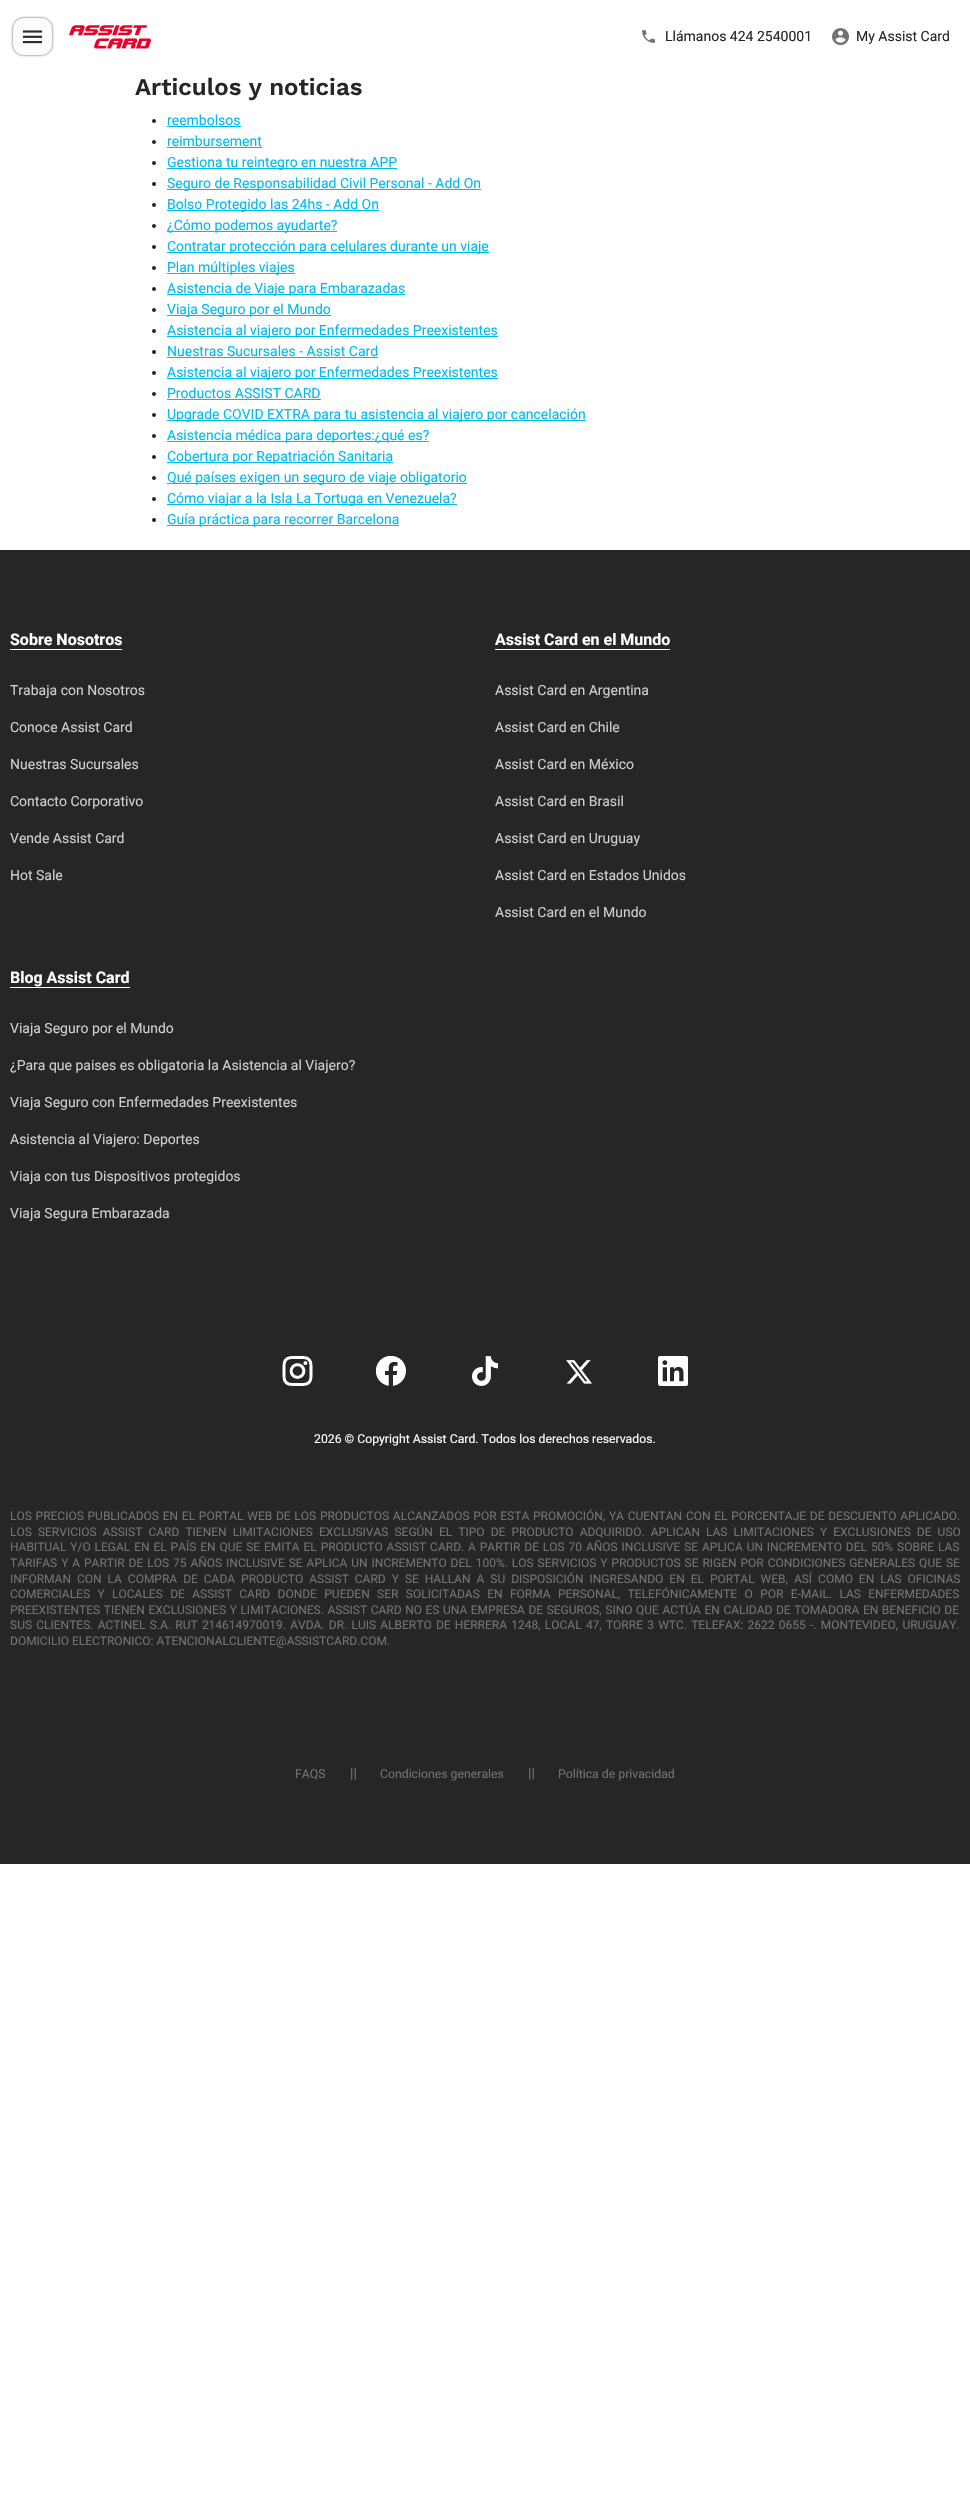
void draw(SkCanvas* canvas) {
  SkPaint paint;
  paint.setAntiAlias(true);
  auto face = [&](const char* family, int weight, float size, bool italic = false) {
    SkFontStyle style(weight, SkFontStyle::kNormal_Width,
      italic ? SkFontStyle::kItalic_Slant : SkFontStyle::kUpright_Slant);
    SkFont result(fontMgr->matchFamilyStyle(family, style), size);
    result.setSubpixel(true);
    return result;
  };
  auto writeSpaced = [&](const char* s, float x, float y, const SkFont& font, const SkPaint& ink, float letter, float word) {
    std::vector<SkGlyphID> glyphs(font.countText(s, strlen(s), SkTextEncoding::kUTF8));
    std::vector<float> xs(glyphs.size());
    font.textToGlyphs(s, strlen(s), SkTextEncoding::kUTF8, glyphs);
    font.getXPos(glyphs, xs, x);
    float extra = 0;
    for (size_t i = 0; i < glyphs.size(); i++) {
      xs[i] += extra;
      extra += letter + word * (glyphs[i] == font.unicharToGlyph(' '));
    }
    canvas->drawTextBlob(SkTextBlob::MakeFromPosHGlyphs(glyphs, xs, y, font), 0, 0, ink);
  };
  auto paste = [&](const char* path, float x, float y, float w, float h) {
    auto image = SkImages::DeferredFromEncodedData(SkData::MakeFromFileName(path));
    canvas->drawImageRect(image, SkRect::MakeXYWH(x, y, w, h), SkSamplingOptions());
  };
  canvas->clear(0xffffffff);
  paint.setColor(0x40000000);
  paint.setMaskFilter(SkMaskFilter::MakeBlur(kNormal_SkBlurStyle, 1));
  canvas->drawRoundRect(SkRect::MakeXYWH(12, 17, 41, 39), 12, 12, paint);
  paint.setMaskFilter(nullptr);
  paint.setColor(0xfffbfbfb);
  canvas->drawRoundRect(SkRect::MakeXYWH(12.5f, 17.5f, 40, 38), 11.5f, 11.5f, paint);
  paint.setStroke(true);
  paint.setStrokeWidth(1);
  paint.setColor(0xffc3c3c3);
  canvas->drawRoundRect(SkRect::MakeXYWH(12.5f, 17.5f, 40, 38), 11.5f, 11.5f, paint);
  paste("img/1.png", 22, 30, 20, 14);
  paste("img/2.png", 69, 25, 82, 24);
  paste("img/3.png", 642, 30, 13, 13);
  paste("img/4.png", 832, 28, 17, 18);
  paint.setStroke(false);
  paint.setColor(0xff262626);
  canvas->drawCircle(154, 121, 2, paint);
  paint.setColor(0xff01baef);
  canvas->drawRect(SkRect::MakeXYWH(167, 126, 74, 1), paint);
  paint.setColor(0xff262626);
  canvas->drawCircle(154, 142, 2, paint);
  paint.setColor(0xff01baef);
  canvas->drawRect(SkRect::MakeXYWH(167, 147, 95, 1), paint);
  paint.setColor(0xff262626);
  canvas->drawCircle(154, 163, 2, paint);
  paint.setColor(0xff01baef);
  canvas->drawRect(SkRect::MakeXYWH(167, 168, 230, 1), paint);
  paint.setColor(0xff262626);
  canvas->drawCircle(154, 184, 2, paint);
  paint.setColor(0xff01baef);
  canvas->drawRect(SkRect::MakeXYWH(167, 189, 314, 1), paint);
  paint.setColor(0xff262626);
  canvas->drawCircle(154, 205, 2, paint);
  paint.setColor(0xff01baef);
  canvas->drawRect(SkRect::MakeXYWH(167, 210, 212, 1), paint);
  paint.setColor(0xff262626);
  canvas->drawCircle(154, 226, 2, paint);
  paint.setColor(0xff01baef);
  canvas->drawRect(SkRect::MakeXYWH(167, 231, 170, 1), paint);
  paint.setColor(0xff262626);
  canvas->drawCircle(154, 247, 2, paint);
  paint.setColor(0xff01baef);
  canvas->drawRect(SkRect::MakeXYWH(167, 252, 322, 1), paint);
  paint.setColor(0xff262626);
  canvas->drawCircle(154, 268, 2, paint);
  paint.setColor(0xff01baef);
  canvas->drawRect(SkRect::MakeXYWH(167, 273, 128, 1), paint);
  paint.setColor(0xff262626);
  canvas->drawCircle(154, 289, 2, paint);
  paint.setColor(0xff01baef);
  canvas->drawRect(SkRect::MakeXYWH(167, 294, 238, 1), paint);
  paint.setColor(0xff262626);
  canvas->drawCircle(154, 310, 2, paint);
  paint.setColor(0xff01baef);
  canvas->drawRect(SkRect::MakeXYWH(167, 315, 164, 1), paint);
  paint.setColor(0xff262626);
  canvas->drawCircle(154, 331, 2, paint);
  paint.setColor(0xff01baef);
  canvas->drawRect(SkRect::MakeXYWH(167, 336, 331, 1), paint);
  paint.setColor(0xff262626);
  canvas->drawCircle(154, 352, 2, paint);
  paint.setColor(0xff01baef);
  canvas->drawRect(SkRect::MakeXYWH(167, 357, 211, 1), paint);
  paint.setColor(0xff262626);
  canvas->drawCircle(154, 373, 2, paint);
  paint.setColor(0xff01baef);
  canvas->drawRect(SkRect::MakeXYWH(167, 378, 331, 1), paint);
  paint.setColor(0xff262626);
  canvas->drawCircle(154, 394, 2, paint);
  paint.setColor(0xff01baef);
  canvas->drawRect(SkRect::MakeXYWH(167, 399, 154, 1), paint);
  paint.setColor(0xff262626);
  canvas->drawCircle(154, 415, 2, paint);
  paint.setColor(0xff01baef);
  canvas->drawRect(SkRect::MakeXYWH(167, 420, 419, 1), paint);
  paint.setColor(0xff262626);
  canvas->drawCircle(154, 436, 2, paint);
  paint.setColor(0xff01baef);
  canvas->drawRect(SkRect::MakeXYWH(167, 441, 262, 1), paint);
  paint.setColor(0xff262626);
  canvas->drawCircle(154, 457, 2, paint);
  paint.setColor(0xff01baef);
  canvas->drawRect(SkRect::MakeXYWH(167, 462, 226, 1), paint);
  paint.setColor(0xff262626);
  canvas->drawCircle(154, 478, 2, paint);
  paint.setColor(0xff01baef);
  canvas->drawRect(SkRect::MakeXYWH(167, 483, 300, 1), paint);
  paint.setColor(0xff262626);
  canvas->drawCircle(154, 499, 2, paint);
  paint.setColor(0xff01baef);
  canvas->drawRect(SkRect::MakeXYWH(167, 504, 290, 1), paint);
  paint.setColor(0xff262626);
  canvas->drawCircle(154, 520, 2, paint);
  {
    const struct { float x, y, w, h; SkColor color; } items[] = {
      {167, 525, 232, 1, 0xff01baef},
      {0, 550, 970, 1314, 0xff262626},
      {10, 649, 112, 1, 0xffffffff},
      {495, 649, 175, 1, 0xffffffff},
      {10, 987, 120, 1, 0xffffffff},
    };
    for (auto [x, y, w, h, color] : items) {
      paint.setColor(color);
      canvas->drawRect(SkRect::MakeXYWH(x, y, w, h), paint);
    }
  }
  paste("img/5.png", 282, 1356, 31, 30);
  paste("img/6.png", 376, 1356, 30, 30);
  paste("img/7.png", 472, 1356, 26, 30);
  paste("img/8.png", 566, 1360, 26, 24);
  paste("img/9.png", 658, 1356, 30, 30);
  auto f0 = face("Roboto", 400, 14);
  paint.setColor(0xff262626);
  canvas->drawString("Llámanos 424 2540001", 665, 41, f0, paint);
  canvas->drawString("My Assist Card", 856, 41, f0, paint);
  auto f1 = face("Work Sans", 600, 24);
  canvas->drawString("Articulos y noticias", 135, 95, f1, paint);
  paint.setColor(0xff01baef);
  {
    const struct { const char* s; float x, y; } items[] = {
      {"reembolsos", 167, 125},
      {"reimbursement", 167, 146},
      {"Gestiona tu reintegro en nuestra APP", 167, 167},
      {"Seguro de Responsabilidad Civil Personal - Add On", 167, 188},
      {"Bolso Protegido las 24hs - Add On", 167, 209},
      {"¿Cómo podemos ayudarte?", 167, 230},
      {"Contratar protección para celulares durante un viaje", 167, 251},
      {"Plan múltiples viajes", 167, 272},
      {"Asistencia de Viaje para Embarazadas", 167, 293},
      {"Viaja Seguro por el Mundo", 167, 314},
      {"Asistencia al viajero por Enfermedades Preexistentes", 167, 335},
      {"Nuestras Sucursales - Assist Card", 167, 356},
      {"Asistencia al viajero por Enfermedades Preexistentes", 167, 377},
      {"Productos ASSIST CARD", 167, 398},
      {"Upgrade COVID EXTRA para tu asistencia al viajero por cancelación", 167, 419},
      {"Asistencia médica para deportes:¿qué es?", 167, 440},
      {"Cobertura por Repatriación Sanitaria", 167, 461},
      {"Qué países exigen un seguro de viaje obligatorio", 167, 482},
      {"Cómo viajar a la Isla La Tortuga en Venezuela?", 167, 503},
      {"Guía práctica para recorrer Barcelona", 167, 524},
    };
    for (auto [s, x, y] : items) {
      canvas->drawString(s, x, y, f0, paint);
    }
  }
  auto f2 = face("Roboto", 700, 16);
  paint.setColor(0xffffffff);
  canvas->drawString("Sobre Nosotros", 10, 645, f2, paint);
  paint.setColor(0xffcecece);
  {
    const struct { const char* s; float x, y; } items[] = {
      {"Trabaja con Nosotros", 10, 695},
      {"Conoce Assist Card", 10, 732},
      {"Nuestras Sucursales", 10, 769},
      {"Contacto Corporativo", 10, 806},
      {"Vende Assist Card", 10, 843},
      {"Hot Sale", 10, 880},
    };
    for (auto [s, x, y] : items) {
      canvas->drawString(s, x, y, f0, paint);
    }
  }
  paint.setColor(0xffffffff);
  canvas->drawString("Assist Card en el Mundo", 495, 645, f2, paint);
  paint.setColor(0xffcecece);
  {
    const struct { const char* s; float x, y; } items[] = {
      {"Assist Card en Argentina", 495, 695},
      {"Assist Card en Chile", 495, 732},
      {"Assist Card en México", 495, 769},
      {"Assist Card en Brasil", 495, 806},
      {"Assist Card en Uruguay", 495, 843},
      {"Assist Card en Estados Unidos", 495, 880},
      {"Assist Card en el Mundo", 495, 917},
    };
    for (auto [s, x, y] : items) {
      canvas->drawString(s, x, y, f0, paint);
    }
  }
  paint.setColor(0xffffffff);
  canvas->drawString("Blog Assist Card", 10, 983, f2, paint);
  paint.setColor(0xffcecece);
  {
    const struct { const char* s; float x, y; } items[] = {
      {"Viaja Seguro por el Mundo", 10, 1033},
      {"¿Para que paises es obligatoria la Asistencia al Viajero?", 10, 1070},
      {"Viaja Seguro con Enfermedades Preexistentes", 10, 1107},
      {"Asistencia al Viajero: Deportes", 10, 1144},
      {"Viaja con tus Dispositivos protegidos", 10, 1181},
      {"Viaja Segura Embarazada", 10, 1218},
    };
    for (auto [s, x, y] : items) {
      canvas->drawString(s, x, y, f0, paint);
    }
  }
  auto f3 = face("Roboto", 400, 12.25f);
  paint.setColor(0xffffffff);
  canvas->drawString("2026 © Copyright Assist Card. Todos los derechos reservados.", 314, 1443, f3, paint);
  auto f4 = face("Roboto", 400, 12);
  paint.setColor(0xff727272);
  writeSpaced("LOS PRECIOS PUBLICADOS EN EL PORTAL WEB DE LOS PRODUCTOS ALCANZADOS POR ESTA PROMOCIÓN, YA CUENTAN CON EL PORCENTAJE DE DESCUENTO APLICADO.", 10, 1520, f4, paint, 0, 0.75f);
  writeSpaced("LOS SERVICIOS ASSIST CARD TIENEN LIMITACIONES EXCLUSIVAS SEGÚN EL TIPO DE PRODUCTO ADQUIRIDO. APLICAN LAS LIMITACIONES Y EXCLUSIONES DE USO", 10, 1536, f4, paint, 0, 3.1f);
  writeSpaced("HABITUAL Y/O LEGAL EN EL PAÍS EN QUE SE EMITA EL PRODUCTO ASSIST CARD. A PARTIR DE LOS 70 AÑOS INCLUSIVE SE APLICA UN INCREMENTO DEL 50% SOBRE LAS", 10, 1551, f4, paint, 0, 0.9f);
  writeSpaced("TARIFAS Y A PARTIR DE LOS 75 AÑOS INCLUSIVE SE APLICA UN INCREMENTO DEL 100%. LOS SERVICIOS Y PRODUCTOS SE RIGEN POR CONDICIONES GENERALES QUE SE", 10, 1567, f4, paint, 0, 0.95f);
  writeSpaced("INFORMAN CON LA COMPRA DE CADA PRODUCTO ASSIST CARD Y SE HALLAN A SU DISPOSICIÓN INGRESANDO EN EL PORTAL WEB, ASÍ COMO EN LAS OFICINAS", 10, 1583, f4, paint, 0, 3);
  writeSpaced("COMERCIALES Y LOCALES DE ASSIST CARD DONDE PUEDEN SER SOLICITADAS EN FORMA PERSONAL, TELEFÓNICAMENTE O POR E-MAIL. LAS ENFERMEDADES", 10, 1598, f4, paint, 0, 4.4f);
  writeSpaced("PREEXISTENTES TIENEN EXCLUSIONES Y LIMITACIONES. ASSIST CARD NO ES UNA EMPRESA DE SEGUROS, SINO QUE ACTÚA EN CALIDAD DE TOMADORA EN BENEFICIO DE", 10, 1614, f4, paint, 0, 0.6f);
  writeSpaced("SUS CLIENTES. ACTINEL S.A. RUT 214614970019. AVDA. DR. LUIS ALBERTO DE HERRERA 1248, LOCAL 47, TORRE 3 WTC. TELEFAX: 2622 0655 -. MONTEVIDEO, URUGUAY.", 10, 1629, f4, paint, 0, 1.25f);
  canvas->drawString("DOMICILIO ELECTRONICO: ATENCIONALCLIENTE@ASSISTCARD.COM.", 10, 1645, f4, paint);
  canvas->drawString("FAQS", 295, 1778, f3, paint);
  canvas->drawString("||", 350, 1778, f0, paint);
  canvas->drawString("Condiciones generales", 380, 1778, f3, paint);
  canvas->drawString("||", 528, 1778, f0, paint);
  canvas->drawString("Política de privacidad", 558, 1778, f3, paint);
}
